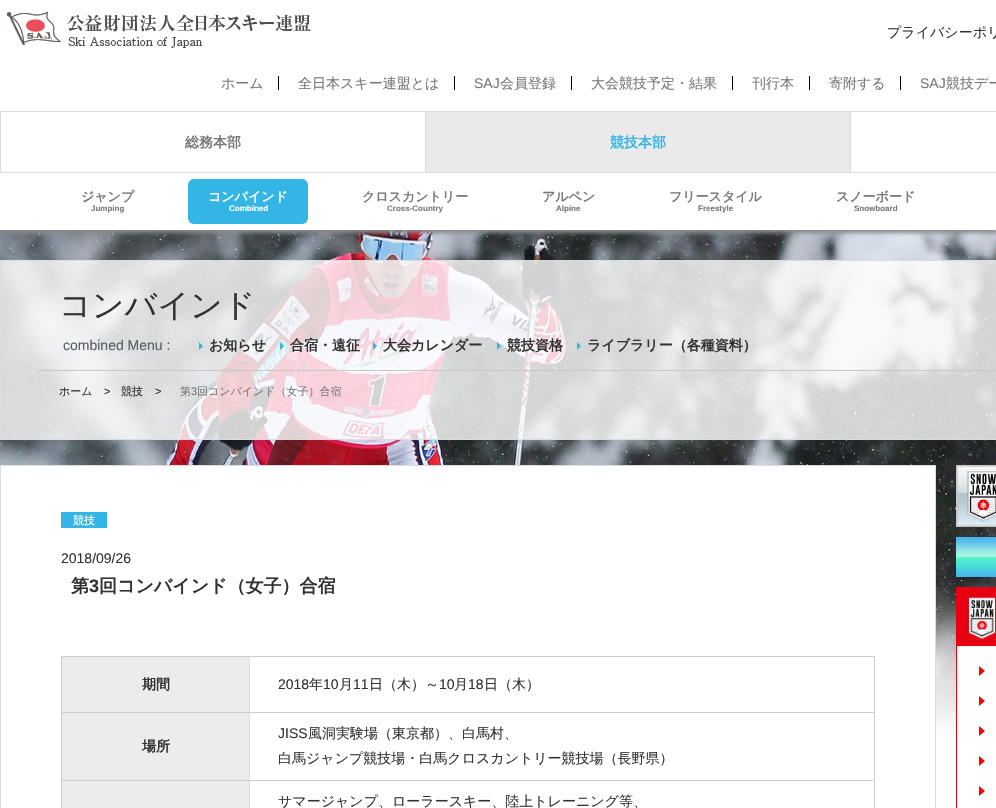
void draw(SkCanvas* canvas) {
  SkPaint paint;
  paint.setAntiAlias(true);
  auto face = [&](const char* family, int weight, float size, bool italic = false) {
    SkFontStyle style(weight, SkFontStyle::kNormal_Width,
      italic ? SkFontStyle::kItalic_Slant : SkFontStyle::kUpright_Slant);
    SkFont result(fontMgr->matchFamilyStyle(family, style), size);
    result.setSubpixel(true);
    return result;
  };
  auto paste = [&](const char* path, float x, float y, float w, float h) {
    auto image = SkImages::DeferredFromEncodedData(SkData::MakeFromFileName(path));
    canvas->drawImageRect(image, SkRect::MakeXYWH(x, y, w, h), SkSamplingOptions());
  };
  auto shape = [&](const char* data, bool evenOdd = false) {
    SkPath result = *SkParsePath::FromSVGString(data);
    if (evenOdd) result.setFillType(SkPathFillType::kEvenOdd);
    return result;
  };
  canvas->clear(0xffffffff);
  paste("img/2.png", 0, 230, 996, 508);
  paint.setColor(0xff8a8a8a);
  paint.setMaskFilter(SkMaskFilter::MakeBlur(kNormal_SkBlurStyle, 2));
  canvas->drawRect(SkRect::MakeXYWH(-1, 1, 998, 232), paint);
  paint.setMaskFilter(nullptr);
  paint.setColor(0xffffffff);
  canvas->drawRect(SkRect::MakeXYWH(0, 0, 996, 230), paint);
  paste("img/1.png", 7, 11, 304, 37);
  {
    const struct { float x, y, w, h; SkColor color; } items[] = {
      {278, 76, 1, 14, 0xff000000},
      {454, 76, 1, 14, 0xff000000},
      {571, 76, 1, 14, 0xff000000},
      {732, 76, 1, 14, 0xff000000},
      {809, 76, 1, 14, 0xff000000},
      {900, 76, 1, 14, 0xff000000},
      {0, 111, 996, 1, 0xffdcdcdc},
      {0, 172, 996, 1, 0xffdcdcdc},
      {0, 112, 1, 60, 0xffdcdcdc},
      {426, 112, 424, 60, 0xffeaeaea},
      {425, 112, 1, 60, 0xffdcdcdc},
      {850, 112, 1, 60, 0xffdcdcdc},
    };
    for (auto [x, y, w, h, color] : items) {
      paint.setColor(color);
      canvas->drawRect(SkRect::MakeXYWH(x, y, w, h), paint);
    }
  }
  paint.setColor(0xff33b5e6);
  canvas->drawRoundRect(SkRect::MakeXYWH(188, 179, 120, 45), 6, 6, paint);
  paint.setColor(0xccffffff);
  canvas->drawRect(SkRect::MakeXYWH(0.5f, 260.5f, 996, 179), paint);
  paint.setStroke(true);
  paint.setStrokeWidth(1);
  paint.setColor(0xffdcdcdc);
  canvas->drawRect(SkRect::MakeXYWH(0.5f, 260.5f, 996, 179), paint);
  paste("img/3.png", 199, 342, 4, 8);
  paste("img/4.png", 280, 342, 4, 8);
  paste("img/5.png", 373, 342, 4, 8);
  paste("img/6.png", 497, 342, 4, 8);
  paste("img/7.png", 577, 342, 4, 8);
  paint.setStroke(false);
  paint.setColor(0xffc8c8c8);
  canvas->drawRect(SkRect::MakeXYWH(39, 370, 957, 1), paint);
  paint.setColor(0xffffffff);
  canvas->drawRect(SkRect::MakeXYWH(1, 466, 934, 272), paint);
  paint.setStroke(true);
  paint.setColor(0xffdcdcdc);
  canvas->drawRect(SkRect::MakeXYWH(0.5f, 465.5f, 935, 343), paint);
  paint.setStroke(false);
  {
    const struct { float x, y, w, h; SkColor color; } items[] = {
      {61, 512, 46, 16, 0xff33b5e6},
      {61, 656, 814, 1, 0xffcccccc},
      {61, 656, 1, 152, 0xffcccccc},
      {62, 657, 187, 55, 0xffececec},
      {249, 780, 1, 28, 0xffdddddd},
      {874, 656, 1, 152, 0xffcccccc},
      {249, 780, 626, 1, 0xffcccccc},
      {249, 712, 1, 69, 0xffdddddd},
      {249, 712, 626, 1, 0xffcccccc},
      {249, 656, 1, 57, 0xffdddddd},
      {61, 712, 189, 1, 0xffcccccc},
      {62, 713, 187, 67, 0xffececec},
      {61, 780, 189, 1, 0xffcccccc},
      {62, 781, 187, 27, 0xffececec},
    };
    for (auto [x, y, w, h, color] : items) {
      paint.setColor(color);
      canvas->drawRect(SkRect::MakeXYWH(x, y, w, h), paint);
    }
  }
  paste("img/8.png", 956, 465, 40, 62);
  paste("img/9.png", 956, 537, 40, 40);
  paint.setColor(0xffe60012);
  canvas->drawRect(SkRect::MakeXYWH(956, 587, 40, 58), paint);
  paste("img/10.png", 968, 597, 28, 43);
  paint.setColor(0xffffffff);
  canvas->drawRect(SkRect::MakeXYWH(957, 646, 39, 90), paint);
  paint.setStroke(true);
  paint.setColor(0xffe60012);
  canvas->drawRect(SkRect::MakeXYWH(956.5f, 645.5f, 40, 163), paint);
  paint.setStroke(false);
  paint.setColor(0xffff0000);
  canvas->drawPath(shape("M979 676V666L985 671ZM979 706V696L985 701Z"), paint);
  canvas->drawPath(shape("M979 736V726L985 731ZM979 766V756L985 761Z"), paint);
  canvas->drawPath(shape("M979 796V786L985 791Z"), paint);
  auto f0 = face("WenQuanYi Zen Hei", 500, 14);
  paint.setColor(0xff323232);
  canvas->drawString("プライバシーポリ", 887, 37, f0, paint);
  paint.setColor(0xff787878);
  canvas->drawString("ホーム", 221, 88, f0, paint);
  canvas->drawString("全日本スキー連盟とは", 298, 88, f0, paint);
  auto f1 = face("Liberation Sans", 400, 14);
  canvas->drawString("SAJ", 474, 88, f1, paint);
  {
    const struct { const char* s; float x, y; } items[] = {
      {"会員登録", 500, 88},
      {"大会競技予定・結果", 591, 88},
      {"刊行本", 752, 88},
      {"寄附する", 829, 88},
    };
    for (auto [s, x, y] : items) {
      canvas->drawString(s, x, y, f0, paint);
    }
  }
  canvas->drawString("SAJ", 920, 88, f1, paint);
  canvas->drawString("競技デー", 946, 88, f0, paint);
  auto f2 = face("WenQuanYi Zen Hei", 700, 14);
  canvas->drawString("総務本部", 185, 147, f2, paint);
  paint.setColor(0xff33b5e6);
  canvas->drawString("競技本部", 610, 147, f2, paint);
  auto f3 = face("WenQuanYi Zen Hei", 700, 13);
  paint.setColor(0xff787878);
  canvas->drawString("ジャンプ", 81, 201, f3, paint);
  auto f4 = face("Liberation Sans", 700, 8);
  canvas->drawString("Jumping", 91, 211, f4, paint);
  paint.setColor(0xffffffff);
  canvas->drawString("コンバインド", 208, 201, f3, paint);
  canvas->drawString("Combined", 229, 211, f4, paint);
  paint.setColor(0xff787878);
  canvas->drawString("クロスカントリー", 362, 201, f3, paint);
  canvas->drawString("Cross-Country", 387, 211, f4, paint);
  canvas->drawString("アルペン", 542, 201, f3, paint);
  canvas->drawString("Alpine", 556, 211, f4, paint);
  canvas->drawString("フリースタイル", 669, 201, f3, paint);
  canvas->drawString("Freestyle", 698, 211, f4, paint);
  canvas->drawString("スノーボード", 836, 201, f3, paint);
  canvas->drawString("Snowboard", 854, 211, f4, paint);
  auto f5 = face("WenQuanYi Zen Hei", 500, 32);
  paint.setColor(0xff323232);
  canvas->drawString("コンバインド", 59, 316, f5, paint);
  paint.setColor(0xff565d64);
  canvas->drawString("combined Menu :", 63, 350, f1, paint);
  paint.setColor(0xff323232);
  {
    const struct { const char* s; float x, y; } items[] = {
      {"お知らせ", 209, 350},
      {"合宿・遠征", 290, 350},
      {"大会カレンダー", 383, 350},
      {"競技資格", 507, 350},
      {"ライブラリー（各種資料）", 587, 350},
    };
    for (auto [s, x, y] : items) {
      canvas->drawString(s, x, y, f2, paint);
    }
  }
  auto f6 = face("WenQuanYi Zen Hei", 500, 11);
  canvas->drawString("ホーム", 59, 395, f6, paint);
  auto f7 = face("Liberation Sans", 400, 11);
  canvas->drawString(">", 104, 395, f7, paint);
  canvas->drawString("競技", 121, 395, f6, paint);
  canvas->drawString(">", 155, 395, f7, paint);
  paint.setColor(0xff787878);
  canvas->drawString("第", 180, 395, f6, paint);
  canvas->drawString("3", 191, 395, f7, paint);
  canvas->drawString("回コンバインド（女子）合宿", 197, 395, f6, paint);
  paint.setColor(0xffffffff);
  canvas->drawString("競技", 73, 524, f6, paint);
  paint.setColor(0xff323232);
  canvas->drawString("2018/09/26", 61, 563, f1, paint);
  auto f8 = face("WenQuanYi Zen Hei", 700, 18);
  canvas->drawString("第", 71, 592, f8, paint);
  auto f9 = face("Liberation Sans", 700, 18);
  canvas->drawString("3", 89, 592, f9, paint);
  canvas->drawString("回コンバインド（女子）合宿", 99, 592, f8, paint);
  canvas->drawString("期間", 142, 689, f2, paint);
  canvas->drawString("2018", 278, 689, f1, paint);
  canvas->drawString("年", 309, 689, f0, paint);
  canvas->drawString("10", 323, 689, f1, paint);
  canvas->drawString("月", 339, 689, f0, paint);
  canvas->drawString("11", 353, 689, f1, paint);
  canvas->drawString("日（木）～", 369, 689, f0, paint);
  canvas->drawString("10", 439, 689, f1, paint);
  canvas->drawString("月", 454, 689, f0, paint);
  canvas->drawString("18", 468, 689, f1, paint);
  canvas->drawString("日（木）", 484, 689, f0, paint);
  canvas->drawString("場所", 142, 751, f2, paint);
  canvas->drawString("JISS", 278, 738, f1, paint);
  {
    const struct { const char* s; float x, y; } items[] = {
      {"風洞実験場（東京都）、白馬村、", 308, 738},
      {"白馬ジャンプ競技場・白馬クロスカントリー競技場（長野県）", 278, 763},
      {"サマージャンプ、ローラースキー、陸上トレーニング等、", 278, 806},
    };
    for (auto [s, x, y] : items) {
      canvas->drawString(s, x, y, f0, paint);
    }
  }
}
